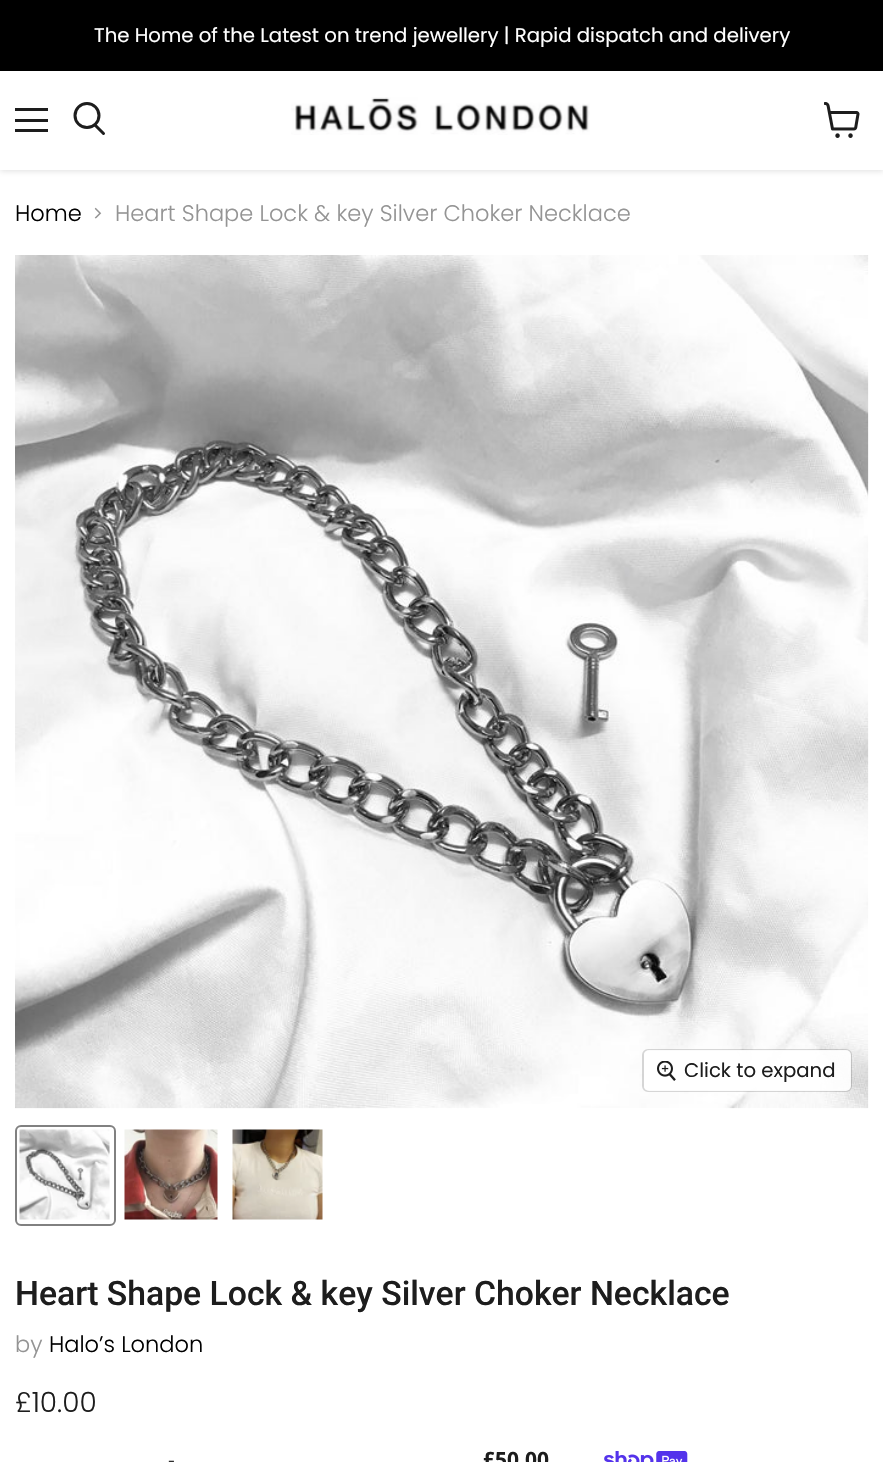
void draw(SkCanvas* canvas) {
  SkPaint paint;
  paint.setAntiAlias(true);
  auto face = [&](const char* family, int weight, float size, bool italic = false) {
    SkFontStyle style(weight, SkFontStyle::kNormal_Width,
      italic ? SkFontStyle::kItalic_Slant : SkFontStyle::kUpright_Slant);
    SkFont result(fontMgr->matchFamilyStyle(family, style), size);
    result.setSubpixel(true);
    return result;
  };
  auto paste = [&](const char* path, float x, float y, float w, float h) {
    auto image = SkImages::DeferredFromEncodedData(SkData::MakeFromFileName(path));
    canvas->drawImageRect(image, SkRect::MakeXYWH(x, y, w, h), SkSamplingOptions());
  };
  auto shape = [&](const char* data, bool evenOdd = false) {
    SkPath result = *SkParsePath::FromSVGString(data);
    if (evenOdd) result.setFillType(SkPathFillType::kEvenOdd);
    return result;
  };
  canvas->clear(0xffffffff);
  paint.setColor(0x40808080);
  paint.setMaskFilter(SkMaskFilter::MakeBlur(kNormal_SkBlurStyle, 3));
  canvas->drawRect(SkRect::MakeXYWH(0, 72, 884, 99), paint);
  paint.setMaskFilter(nullptr);
  {
    const struct { float x, y, w, h; SkColor color; } items[] = {
      {0, 0, 883, 71, 0xff000000},
      {0, 71, 883, 99, 0xffffffff},
      {15, 108, 33, 3, 0xff1d1d1d},
      {15, 119, 33, 3, 0xff1d1d1d},
      {15, 129, 33, 3, 0xff1d1d1d},
    };
    for (auto [x, y, w, h, color] : items) {
      paint.setColor(color);
      canvas->drawRect(SkRect::MakeXYWH(x, y, w, h), paint);
    }
  }
  paint.setStroke(true);
  paint.setStrokeWidth(3);
  paint.setStrokeCap(SkPaint::kRound_Cap);
  canvas->drawPath(shape("M103.5 133.5L95 125"), paint);
  paint.setStrokeCap(SkPaint::kButt_Cap);
  canvas->drawCircle(87, 115.5f, 12, paint);
  paste("img/1.png", 291, 97, 299, 38);
  paste("img/2.png", 824, 102, 36, 36);
  paste("img/3.png", 94, 207, 8, 12);
  paste("img/4.png", 15, 255, 854, 854);
  paint.setStrokeWidth(2);
  paint.setColor(0x26000000);
  canvas->drawRoundRect(SkRect::MakeXYWH(643, 1050, 208, 41), 5, 5, paint);
  paint.setStroke(false);
  paint.setColor(0xe6ffffff);
  canvas->drawRoundRect(SkRect::MakeXYWH(644, 1050, 207, 41), 5, 5, paint);
  paste("img/5.png", 657, 1061, 19, 20);
  paint.setStroke(true);
  paint.setColor(0xff818181);
  canvas->drawRoundRect(SkRect::MakeXYWH(16, 1126, 99, 99), 5, 5, paint);
  paste("img/6.png", 19, 1129, 91, 91);
  paste("img/7.png", 124, 1129, 94, 91);
  paste("img/8.png", 232, 1129, 91, 91);
  paste("img/9.png", 604, 1451, 84, 11);
  auto f0 = face("Poppins", 400, 19.7f);
  paint.setStroke(false);
  paint.setColor(0xffffffff);
  canvas->drawString("The Home of the Latest on trend jewellery | Rapid dispatch and delivery", 94, 42, f0, paint);
  auto f1 = face("Poppins", 300, 22.5f);
  paint.setColor(0xff000000);
  canvas->drawString("Home", 15, 221, f1, paint);
  paint.setColor(0xff949494);
  canvas->drawString("Heart Shape Lock & key Silver Choker Necklace", 115, 221, f1, paint);
  paint.setColor(0xff1d1d1d);
  canvas->drawString("Click to expand", 684, 1077, f0, paint);
  auto f2 = face("Roboto", 500, 33.75f);
  canvas->drawString("Heart Shape Lock & key Silver Choker Necklace", 15, 1305, f2, paint);
  paint.setColor(0xff949494);
  canvas->drawString("by", 15, 1352, f1, paint);
  paint.setColor(0xff000000);
  canvas->drawString("Halo’s London", 49, 1352, f1, paint);
  auto f3 = face("Poppins", 300, 28);
  paint.setColor(0xff1d1d1d);
  canvas->drawString("£10.00", 15, 1412, f3, paint);
  auto f4 = face("Noto Sans", 300, 21);
  canvas->drawString("-", 168, 1467, f4, paint);
  auto f5 = face("Noto Sans", 700, 21);
  canvas->drawString("£50.00", 483, 1467, f5, paint);
}
